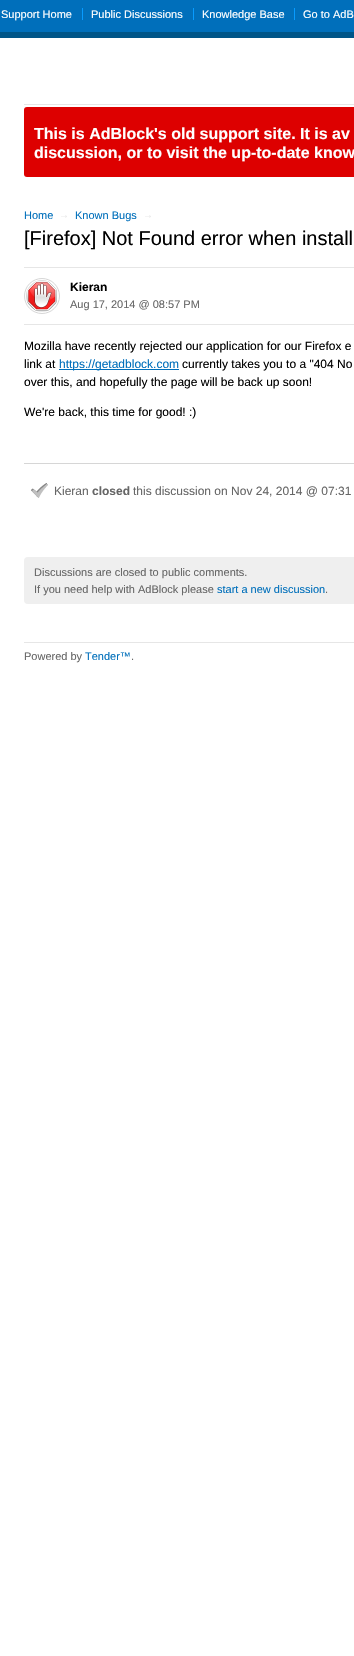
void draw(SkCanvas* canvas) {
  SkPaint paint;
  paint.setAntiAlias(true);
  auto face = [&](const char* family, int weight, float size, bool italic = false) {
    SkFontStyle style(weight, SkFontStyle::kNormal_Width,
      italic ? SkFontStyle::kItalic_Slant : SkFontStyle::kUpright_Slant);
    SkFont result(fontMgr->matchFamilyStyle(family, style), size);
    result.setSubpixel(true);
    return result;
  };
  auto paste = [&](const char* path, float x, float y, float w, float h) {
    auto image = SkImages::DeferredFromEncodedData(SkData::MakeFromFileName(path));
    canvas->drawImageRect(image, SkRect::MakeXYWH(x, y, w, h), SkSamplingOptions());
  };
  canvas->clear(0xffffffff);
  {
    const struct { float x, y, w, h; SkColor color; } items[] = {
      {0, 0, 354, 32, 0xff006fbb},
      {0, 32, 354, 6, 0xff005588},
      {82, 8, 1, 12, 0xff089bff},
      {193, 8, 1, 12, 0xff089bff},
      {294, 8, 1, 12, 0xff089bff},
      {24, 104, 330, 1, 0xffe6e6e6},
    };
    for (auto [x, y, w, h, color] : items) {
      paint.setColor(color);
      canvas->drawRect(SkRect::MakeXYWH(x, y, w, h), paint);
    }
  }
  paint.setColor(0xffdd0000);
  canvas->drawRoundRect(SkRect::MakeXYWH(24, 107, 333, 70), 3, 3, paint);
  paint.setColor(0xffe6e6e6);
  canvas->drawRect(SkRect::MakeXYWH(24, 267, 330, 1), paint);
  canvas->drawRect(SkRect::MakeXYWH(24, 324, 330, 1), paint);
  paint.setStroke(true);
  paint.setStrokeWidth(1);
  paint.setColor(0xffd6d6d6);
  canvas->drawCircle(42, 296, 17.5f, paint);
  paste("img/1.png", 26, 280, 31, 32);
  paint.setStroke(false);
  paint.setColor(0xff006fbb);
  canvas->drawRect(SkRect::MakeXYWH(59, 369, 120, 1), paint);
  paint.setColor(0xffd6d6d6);
  canvas->drawRect(SkRect::MakeXYWH(24, 463, 330, 1), paint);
  paste("img/2.png", 31, 483, 17, 15);
  paint.setColor(0xffefefef);
  canvas->drawRoundRect(SkRect::MakeXYWH(24, 557, 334, 47), 4, 4, paint);
  paint.setColor(0xffe6e6e6);
  canvas->drawRect(SkRect::MakeXYWH(24, 642, 330, 1), paint);
  auto f0 = face("Liberation Sans", 400, 11);
  paint.setColor(0xffffffff);
  {
    const struct { const char* s; float x, y; } items[] = {
      {"Support Home", 1, 18},
      {"Public Discussions", 91, 18},
      {"Knowledge Base", 202, 18},
      {"Go to AdB", 303, 18},
    };
    for (auto [s, x, y] : items) {
      canvas->drawString(s, x, y, f0, paint);
    }
  }
  auto f1 = face("Liberation Sans", 700, 16);
  canvas->drawString("This is AdBlock's old support site. It is av", 34, 139, f1, paint);
  canvas->drawString("discussion, or to visit the up-to-date know", 34, 158, f1, paint);
  paint.setColor(0xff006fbb);
  canvas->drawString("Home", 24, 219, f0, paint);
  auto f2 = face("Liberation Sans", 400, 10);
  paint.setColor(0xffe6e6e6);
  canvas->drawString("→", 59, 218, f2, paint);
  paint.setColor(0xff006fbb);
  canvas->drawString("Known Bugs", 75, 219, f0, paint);
  paint.setColor(0xffe6e6e6);
  canvas->drawString("→", 143, 218, f2, paint);
  auto f3 = face("Liberation Sans", 400, 20);
  paint.setColor(0xff000000);
  canvas->drawString("[Firefox] Not Found error when install", 24, 245, f3, paint);
  auto f4 = face("Liberation Sans", 700, 12);
  canvas->drawString("Kieran", 70, 291, f4, paint);
  paint.setColor(0xff666666);
  canvas->drawString("Aug 17, 2014 @ 08:57 PM", 70, 308, f0, paint);
  auto f5 = face("Liberation Sans", 400, 12);
  paint.setColor(0xff000000);
  canvas->drawString("Mozilla have recently rejected our application for our Firefox e", 24, 350, f5, paint);
  canvas->drawString("link at", 24, 368, f5, paint);
  paint.setColor(0xff006fbb);
  canvas->drawString("https://getadblock.com", 59, 368, f5, paint);
  paint.setColor(0xff000000);
  {
    const struct { const char* s; float x, y; } items[] = {
      {"currently takes you to a \"404 No", 182, 368},
      {"over this, and hopefully the page will be back up soon!", 24, 386},
      {"We're back, this time for good! :)", 24, 416},
    };
    for (auto [s, x, y] : items) {
      canvas->drawString(s, x, y, f5, paint);
    }
  }
  paint.setColor(0xff666666);
  canvas->drawString("Kieran", 54, 495, f5, paint);
  canvas->drawString("closed", 92, 495, f4, paint);
  canvas->drawString("this discussion on Nov 24, 2014 @ 07:31", 133, 495, f5, paint);
  canvas->drawString("Discussions are closed to public comments.", 34, 576, f0, paint);
  canvas->drawString("If you need help with AdBlock please", 34, 593, f0, paint);
  paint.setColor(0xff006fbb);
  canvas->drawString("start a new discussion", 217, 593, f0, paint);
  paint.setColor(0xff666666);
  canvas->drawString(".", 325, 593, f0, paint);
  canvas->drawString("Powered by", 24, 660, f0, paint);
  paint.setColor(0xff006fbb);
  canvas->drawString("Tender™", 85, 660, f0, paint);
  paint.setColor(0xff666666);
  canvas->drawString(".", 131, 660, f0, paint);
}
